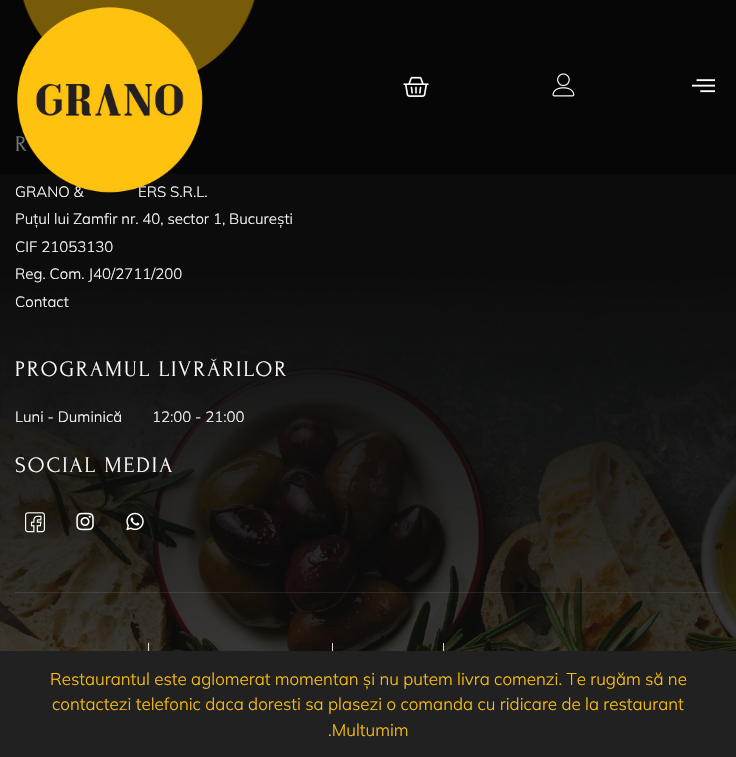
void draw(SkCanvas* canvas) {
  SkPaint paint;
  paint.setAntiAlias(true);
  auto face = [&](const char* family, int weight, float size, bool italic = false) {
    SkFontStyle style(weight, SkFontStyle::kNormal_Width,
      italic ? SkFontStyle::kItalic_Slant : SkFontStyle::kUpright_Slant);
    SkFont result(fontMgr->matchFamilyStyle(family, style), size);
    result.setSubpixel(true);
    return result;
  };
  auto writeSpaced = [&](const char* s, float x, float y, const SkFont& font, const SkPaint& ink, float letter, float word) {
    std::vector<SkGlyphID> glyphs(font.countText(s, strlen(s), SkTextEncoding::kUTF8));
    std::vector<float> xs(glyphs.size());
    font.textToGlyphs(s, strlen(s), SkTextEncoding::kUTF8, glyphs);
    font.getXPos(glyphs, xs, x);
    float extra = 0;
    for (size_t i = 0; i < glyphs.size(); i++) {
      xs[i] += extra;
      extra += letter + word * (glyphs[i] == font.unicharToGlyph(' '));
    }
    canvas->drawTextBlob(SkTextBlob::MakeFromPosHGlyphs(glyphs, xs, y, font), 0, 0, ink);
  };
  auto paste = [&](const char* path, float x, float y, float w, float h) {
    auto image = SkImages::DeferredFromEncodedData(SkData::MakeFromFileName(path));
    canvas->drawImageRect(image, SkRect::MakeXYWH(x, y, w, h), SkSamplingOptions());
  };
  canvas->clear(0xffffffff);
  paste("img/5.png", 0, 0, 736, 651);
  paste("img/6.png", 22, 0, 233, 72);
  paste("img/7.png", 25, 512, 20, 21);
  paste("img/8.png", 76, 512, 18, 19);
  paste("img/9.png", 126, 512, 18, 19);
  {
    const struct { float x, y, w, h; SkColor color; } items[] = {
      {15, 592, 706, 1, 0x17ffffff},
      {148, 643, 1, 8, 0xffdddddd},
      {332, 643, 1, 8, 0xffdddddd},
      {443, 643, 1, 8, 0xffdddddd},
      {0, 651, 736, 106, 0xff212121},
    };
    for (auto [x, y, w, h, color] : items) {
      paint.setColor(color);
      canvas->drawRect(SkRect::MakeXYWH(x, y, w, h), paint);
    }
  }
  auto f0 = face("Forum", 400, 22);
  paint.setColor(0xffffffff);
  writeSpaced("R", 15, 151, f0, paint, 2, 0);
  paint.setColor(0x87000000);
  canvas->drawRect(SkRect::MakeXYWH(0, 0, 736, 174), paint);
  paste("img/4.png", 692, 79, 23, 14);
  paste("img/3.png", 552, 73, 23, 24);
  paste("img/2.png", 403, 76, 26, 21);
  auto f1 = face("Mulish", 300, 15);
  paint.setColor(0xffffffff);
  canvas->drawString("GRANO &", 15, 197, f1, paint);
  canvas->drawString("ERS S.R.L.", 138, 197, f1, paint);
  paste("img/1.png", 17, 7, 186, 186);
  {
    const struct { const char* s; float x, y; } items[] = {
      {"Puțul lui Zamfir nr. 40, sector 1, București", 15, 224},
      {"CIF 21053130", 15, 252},
      {"Reg. Com. J40/2711/200", 15, 279},
      {"Contact", 15, 307},
    };
    for (auto [s, x, y] : items) {
      canvas->drawString(s, x, y, f1, paint);
    }
  }
  writeSpaced("PROGRAMUL LIVRĂRILOR", 15, 376, f0, paint, 2, 0);
  canvas->drawString("Luni - Duminică", 15, 422, f1, paint);
  canvas->drawString("12:00 - 21:00", 152, 422, f1, paint);
  writeSpaced("SOCIAL MEDIA", 15, 472, f0, paint, 2, 0);
  auto f2 = face("Mulish", 300, 17);
  paint.setColor(0xffffc111);
  {
    const struct { const char* s; float x, y; } items[] = {
      {"Restaurantul este aglomerat momentan și nu putem livra comenzi. Te rugăm să ne", 50, 685},
      {"contactezi telefonic daca doresti sa plasezi o comanda cu ridicare de la restaurant", 52, 710},
      {".Multumim", 328, 736},
    };
    for (auto [s, x, y] : items) {
      canvas->drawString(s, x, y, f2, paint);
    }
  }
}
